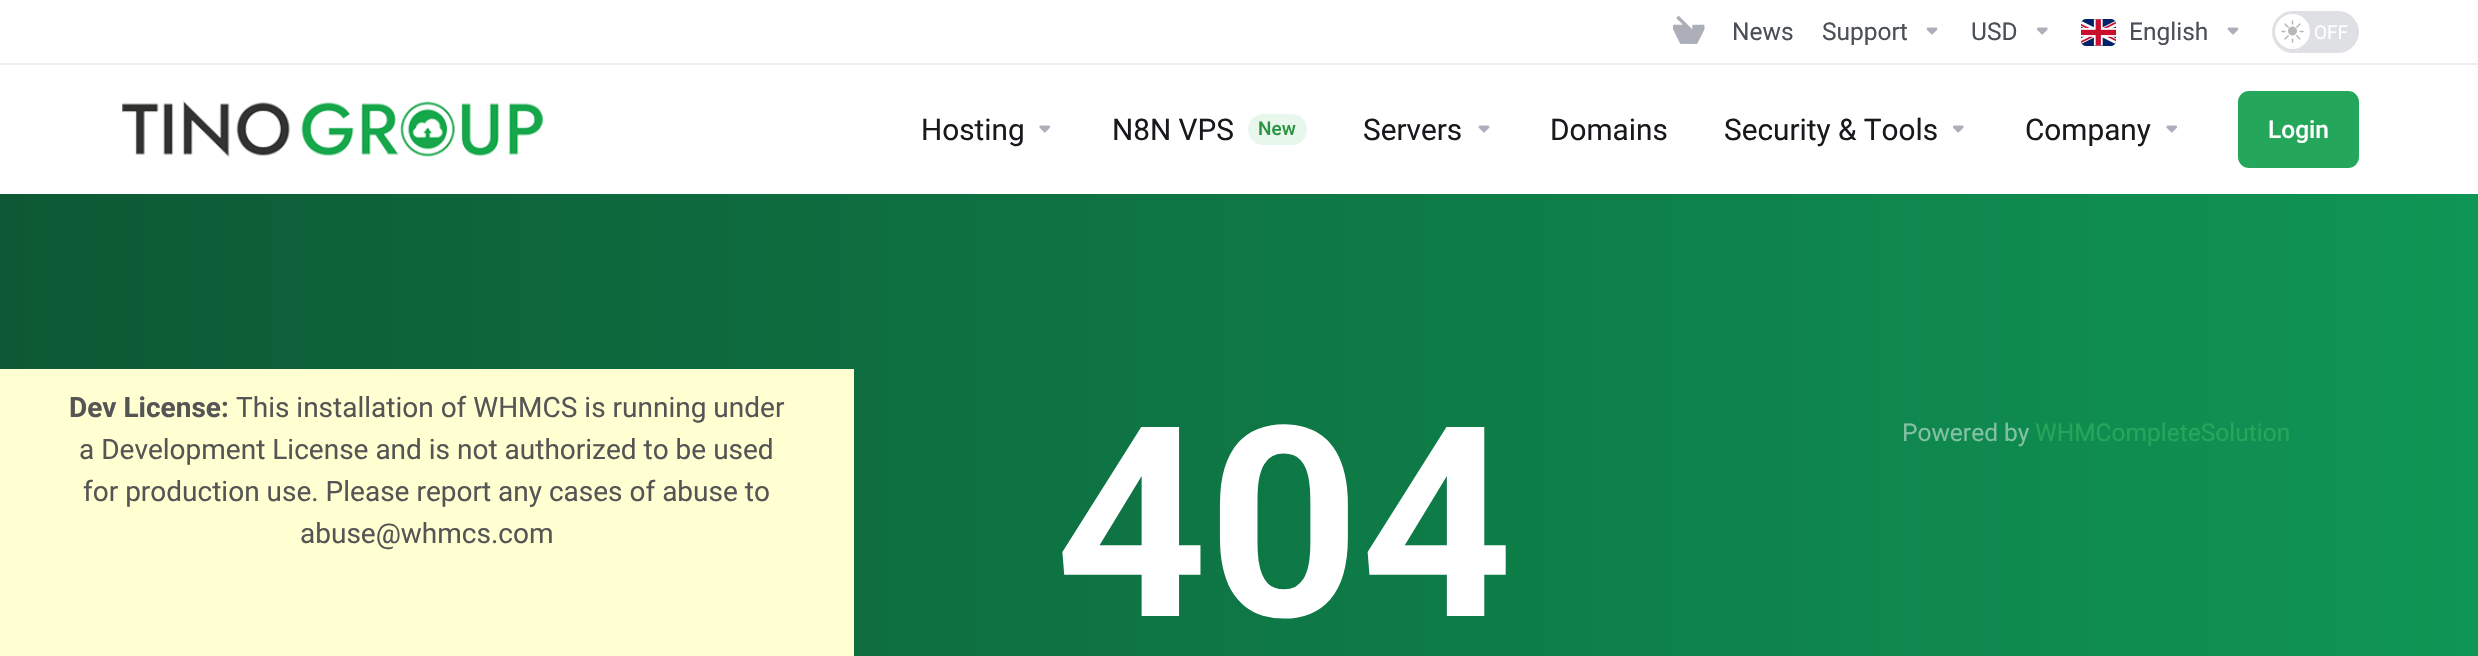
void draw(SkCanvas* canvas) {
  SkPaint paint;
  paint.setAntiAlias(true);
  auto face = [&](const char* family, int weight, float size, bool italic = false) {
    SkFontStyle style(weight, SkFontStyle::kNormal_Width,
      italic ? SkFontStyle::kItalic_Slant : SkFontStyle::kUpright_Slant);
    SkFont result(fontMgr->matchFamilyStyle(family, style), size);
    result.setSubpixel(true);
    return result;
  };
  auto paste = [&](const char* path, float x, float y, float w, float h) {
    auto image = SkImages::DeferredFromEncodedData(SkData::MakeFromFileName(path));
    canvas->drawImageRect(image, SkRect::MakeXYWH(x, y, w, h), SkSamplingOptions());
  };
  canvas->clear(0xffffffff);
  paint.setColor(0xffefeff1);
  canvas->drawRect(SkRect::MakeXYWH(0, 63, 2478, 2), paint);
  paste("img/1.png", 1673, 16, 32, 28);
  paste("img/2.png", 1926, 27, 12, 8);
  paste("img/3.png", 2037, 27, 11, 8);
  paste("img/4.png", 2081, 19, 35, 27);
  paste("img/2.png", 2227, 27, 12, 8);
  paint.setColor(0xffdee0e3);
  canvas->drawRoundRect(SkRect::MakeXYWH(2272, 11, 87, 42), 21, 21, paint);
  paint.setColor(0xffffffff);
  canvas->drawCircle(2292.5f, 31.5f, 17.5f, paint);
  paste("img/5.png", 2281, 20, 23, 23);
  paste("img/6.png", 122, 100, 421, 58);
  paste("img/7.png", 1039, 125, 11, 8);
  paint.setColor(0xffe8f7ec);
  canvas->drawRoundRect(SkRect::MakeXYWH(1248, 114, 59, 31), 15.5f, 15.5f, paint);
  paste("img/2.png", 1478, 125, 12, 8);
  paste("img/3.png", 1953, 125, 11, 8);
  paste("img/7.png", 2166, 125, 11, 8);
  paint.setColor(0xff25a75b);
  canvas->drawRoundRect(SkRect::MakeXYWH(2239, 92, 119, 75), 10, 10, paint);
  paint.setStroke(true);
  paint.setStrokeWidth(2);
  canvas->drawRoundRect(SkRect::MakeXYWH(2239, 92, 119, 75), 10, 10, paint);
  paint.setStroke(false);
  {
    const SkColor colors[] = {0xff0d5935, 0xff0f9555};
    const float stops[] = {0, 1};
    const SkPoint ends[] = {{0, 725}, {2478, 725}};
    paint.setShader(SkGradientShader::MakeLinear(ends, colors, stops, 2, SkTileMode::kClamp));
    paint.setAlpha(255);
  }
  canvas->drawRect(SkRect::MakeXYWH(0, 194, 2478, 462), paint);
  paint.setShader(nullptr);
  paint.setColor(0xffffffd2);
  canvas->drawRect(SkRect::MakeXYWH(0, 369, 854, 287), paint);
  auto f0 = face("Roboto", 400, 24.5f);
  paint.setColor(0xff4b4f58);
  {
    const struct { const char* s; float x, y; } items[] = {
      {"News", 1732, 40},
      {"Support", 1822, 40},
      {"USD", 1971, 40},
      {"English", 2129, 40},
    };
    for (auto [s, x, y] : items) {
      canvas->drawString(s, x, y, f0, paint);
    }
  }
  auto f1 = face("Roboto", 400, 19);
  paint.setColor(0xffffffff);
  canvas->drawString("OFF", 2314, 39, f1, paint);
  auto f2 = face("Roboto", 400, 29.75f);
  paint.setColor(0xff17191c);
  canvas->drawString("Hosting", 921, 140, f2, paint);
  canvas->drawString("N8N VPS", 1112, 140, f2, paint);
  auto f3 = face("Roboto", 500, 19);
  paint.setColor(0xff299341);
  canvas->drawString("New", 1258, 135, f3, paint);
  paint.setColor(0xff17191c);
  {
    const struct { const char* s; float x, y; } items[] = {
      {"Servers", 1363, 140},
      {"Domains", 1550, 140},
      {"Security & Tools", 1724, 140},
      {"Company", 2025, 140},
    };
    for (auto [s, x, y] : items) {
      canvas->drawString(s, x, y, f2, paint);
    }
  }
  auto f4 = face("Roboto", 500, 24.5f);
  paint.setColor(0xffffffff);
  canvas->drawString("Login", 2268, 138, f4, paint);
  auto f5 = face("Roboto", 700, 28);
  paint.setColor(0xff555555);
  canvas->drawString("Dev License:", 69, 417, f5, paint);
  auto f6 = face("Roboto", 400, 28);
  {
    const struct { const char* s; float x, y; } items[] = {
      {"This installation of WHMCS is running under", 236, 417},
      {"a Development License and is not authorized to be used", 79, 459},
      {"for production use. Please report any cases of abuse to", 83, 501},
      {"abuse@whmcs.com", 300, 543},
    };
    for (auto [s, x, y] : items) {
      canvas->drawString(s, x, y, f6, paint);
    }
  }
  auto f7 = face("Roboto", 700, 266);
  paint.setColor(0xffffffff);
  canvas->drawString("404", 1055, 616, f7, paint);
  paint.setColor(0xff82c1a3);
  canvas->drawString("Powered by", 1902, 441, f0, paint);
  paint.setColor(0xff25a75b);
  canvas->drawString("WHMCompleteSolution", 2035, 441, f0, paint);
}
